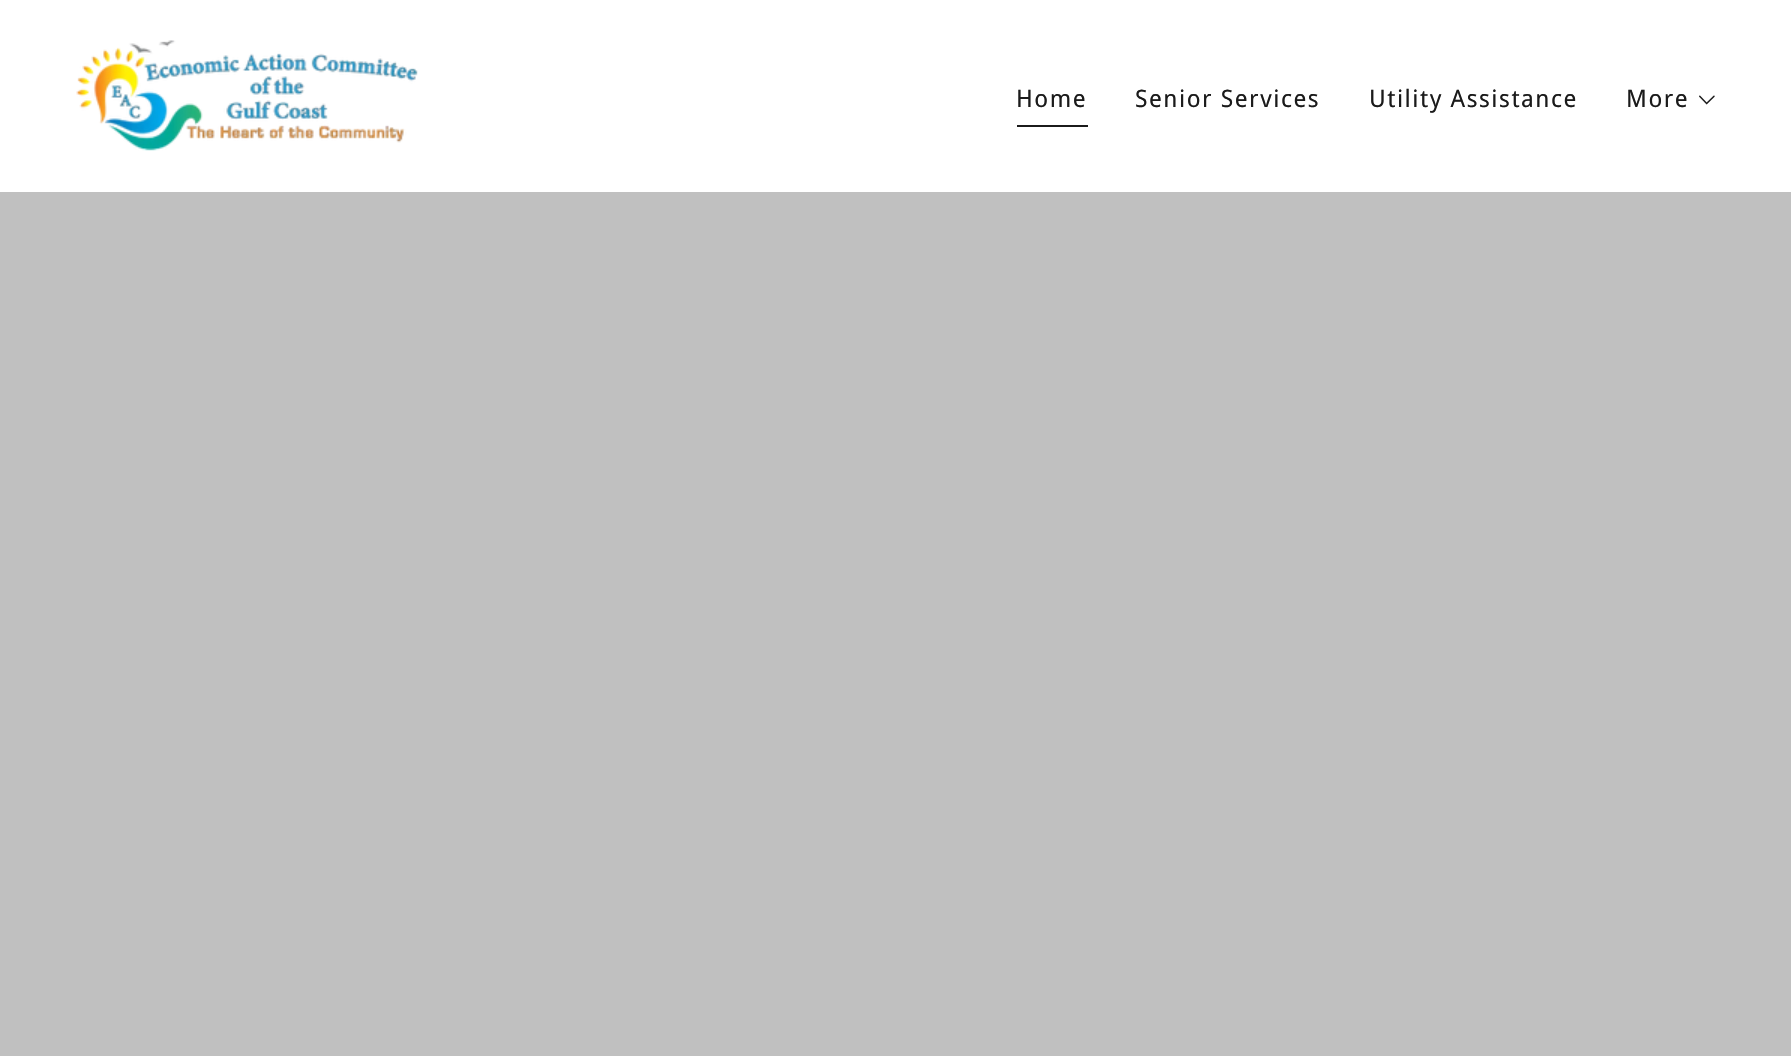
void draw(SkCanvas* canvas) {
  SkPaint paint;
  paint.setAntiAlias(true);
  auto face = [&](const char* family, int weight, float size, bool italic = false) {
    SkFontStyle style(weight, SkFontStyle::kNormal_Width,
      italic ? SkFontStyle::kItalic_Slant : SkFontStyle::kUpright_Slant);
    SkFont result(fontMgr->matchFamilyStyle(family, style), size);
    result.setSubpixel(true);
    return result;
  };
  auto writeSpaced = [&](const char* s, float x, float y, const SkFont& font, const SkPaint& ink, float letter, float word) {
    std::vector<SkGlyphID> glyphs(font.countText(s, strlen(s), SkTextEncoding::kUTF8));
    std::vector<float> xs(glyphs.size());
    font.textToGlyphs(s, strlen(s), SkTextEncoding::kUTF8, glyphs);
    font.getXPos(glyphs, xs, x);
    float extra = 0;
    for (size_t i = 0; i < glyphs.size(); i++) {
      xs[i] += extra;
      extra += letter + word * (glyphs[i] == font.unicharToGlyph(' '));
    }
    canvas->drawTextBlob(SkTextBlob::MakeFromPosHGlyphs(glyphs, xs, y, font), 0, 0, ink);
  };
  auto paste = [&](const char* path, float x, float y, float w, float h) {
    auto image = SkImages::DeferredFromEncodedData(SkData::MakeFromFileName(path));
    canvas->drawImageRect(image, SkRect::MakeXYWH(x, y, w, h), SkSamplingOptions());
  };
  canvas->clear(0xffffffff);
  paste("img/1.png", 76, 40, 342, 111);
  paint.setColor(0xff1b1b1b);
  canvas->drawRect(SkRect::MakeXYWH(1017, 125, 71, 2), paint);
  paste("img/2.png", 1699, 95, 16, 10);
  paint.setColor(0xffc0c0c0);
  canvas->drawRect(SkRect::MakeXYWH(0, 192, 1791, 864), paint);
  auto f0 = face("Droid Sans", 400, 24);
  paint.setColor(0xff1b1b1b);
  {
    const struct { const char* s; float x, y; } items[] = {
      {"Home", 1016, 107},
      {"Senior Services", 1135, 107},
      {"Utility Assistance", 1369, 107},
      {"More", 1626, 107},
    };
    for (auto [s, x, y] : items) {
      writeSpaced(s, x, y, f0, paint, 1.5f, 0);
    }
  }
}
